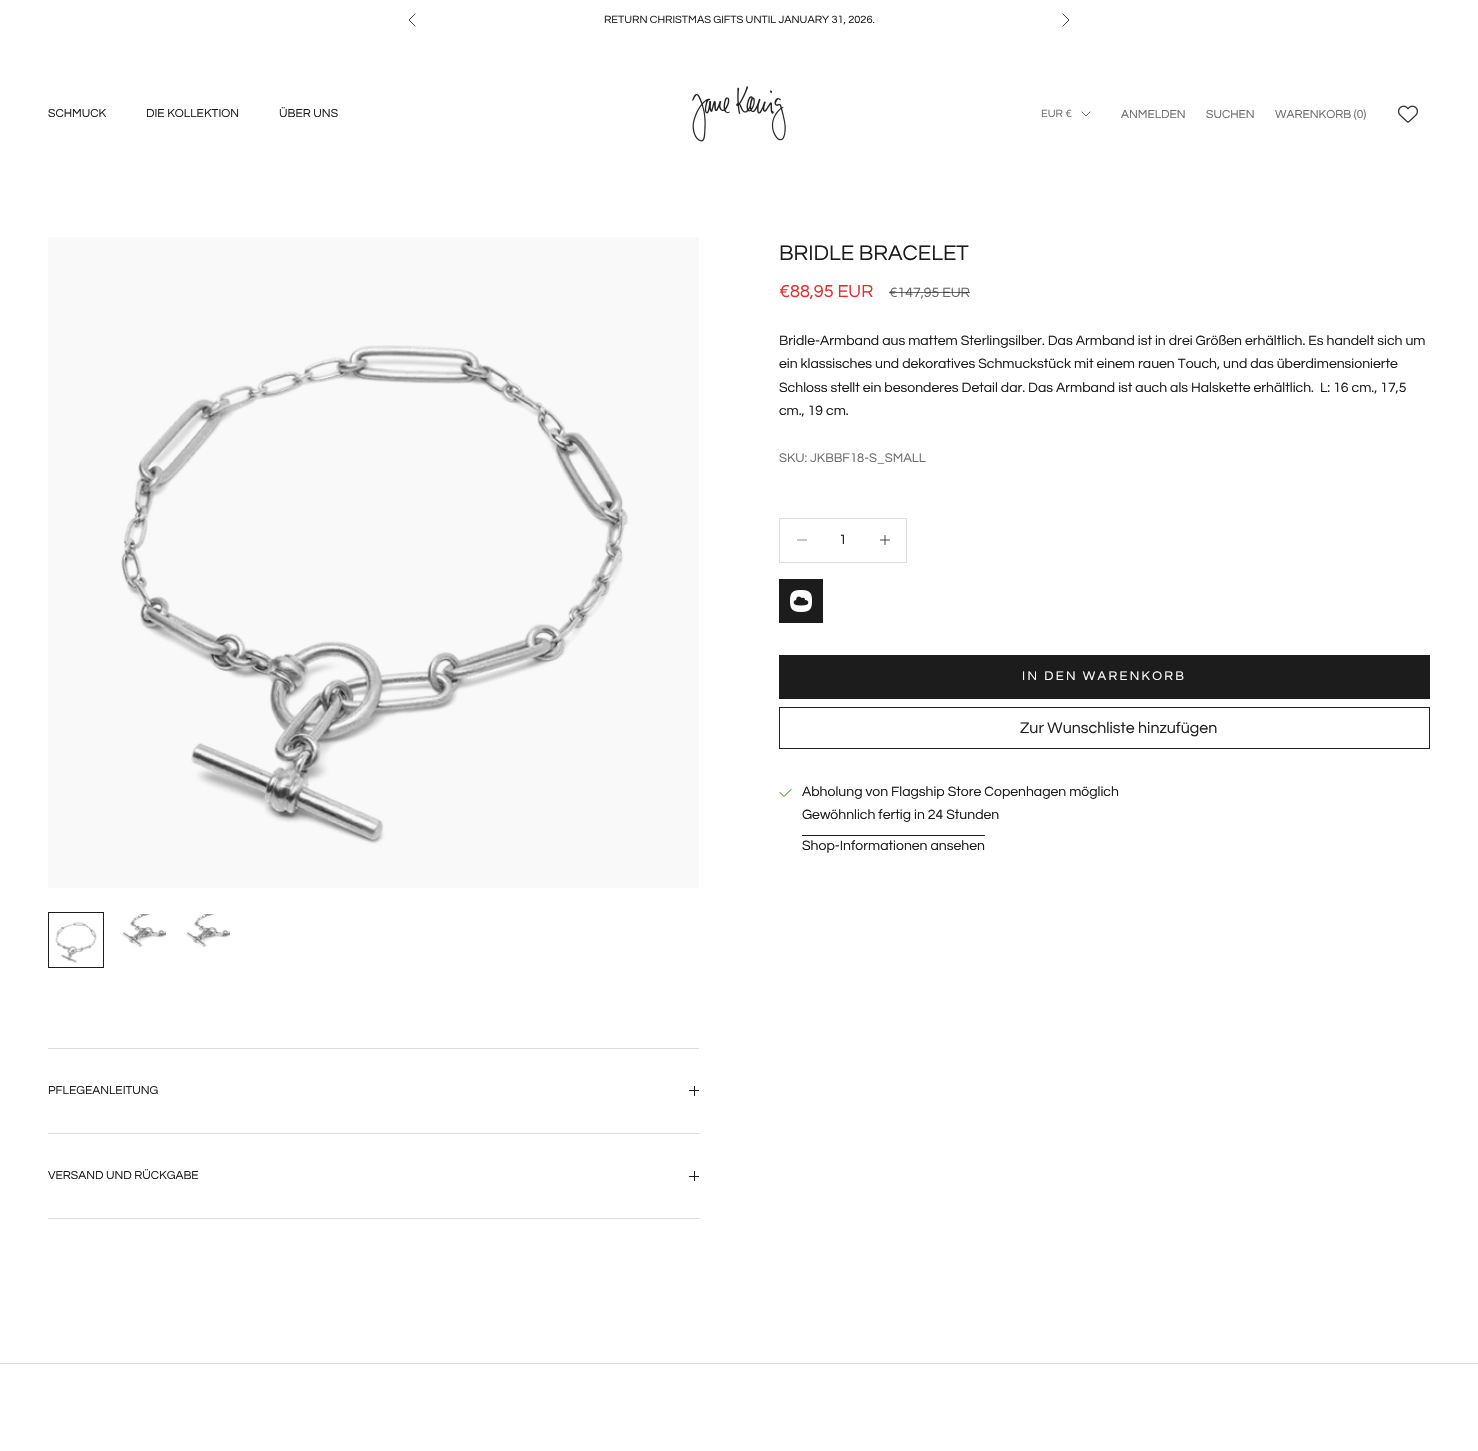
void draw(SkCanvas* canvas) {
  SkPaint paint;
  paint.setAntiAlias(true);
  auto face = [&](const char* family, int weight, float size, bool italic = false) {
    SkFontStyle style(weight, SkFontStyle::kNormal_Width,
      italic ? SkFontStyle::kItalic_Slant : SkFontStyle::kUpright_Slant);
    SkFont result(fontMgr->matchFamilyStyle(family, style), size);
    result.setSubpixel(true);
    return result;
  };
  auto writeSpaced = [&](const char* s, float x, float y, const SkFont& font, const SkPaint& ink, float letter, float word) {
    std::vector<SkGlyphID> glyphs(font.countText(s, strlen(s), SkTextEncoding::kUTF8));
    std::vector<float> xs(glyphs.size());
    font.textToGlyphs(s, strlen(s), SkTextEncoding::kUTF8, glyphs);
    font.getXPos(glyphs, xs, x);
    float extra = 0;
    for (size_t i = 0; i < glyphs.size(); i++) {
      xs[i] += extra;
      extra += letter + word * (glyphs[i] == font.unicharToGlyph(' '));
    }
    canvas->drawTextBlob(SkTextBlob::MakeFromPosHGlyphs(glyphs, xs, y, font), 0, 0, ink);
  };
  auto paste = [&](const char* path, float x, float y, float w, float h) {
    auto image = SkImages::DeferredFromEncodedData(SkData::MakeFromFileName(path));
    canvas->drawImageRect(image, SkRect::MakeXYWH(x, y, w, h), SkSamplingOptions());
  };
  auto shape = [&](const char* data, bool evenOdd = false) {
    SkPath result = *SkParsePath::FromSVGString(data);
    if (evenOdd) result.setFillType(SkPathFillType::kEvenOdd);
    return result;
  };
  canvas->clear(0xffffffff);
  paint.setStroke(true);
  paint.setStrokeWidth(0.8f);
  paint.setStrokeCap(SkPaint::kSquare_Cap);
  paint.setColor(0xff1c1c1c);
  canvas->drawPath(shape("M415 14L409 20L415 26"), paint);
  canvas->drawPath(shape("M1063 26L1069 20L1063 14"), paint);
  paste("img/1.png", 692, 86, 94, 56);
  paint.setStrokeWidth(1);
  paint.setColor(0xff6b6b6b);
  canvas->drawPath(shape("M1082 112L1086 116L1090 112"), paint);
  paste("img/2.png", 1398, 105, 20, 18);
  paint.setStroke(false);
  paint.setColor(0xfff9f9f9);
  canvas->drawRect(SkRect::MakeXYWH(48, 237, 651, 651), paint);
  paste("img/3.png", 120, 345, 509, 499);
  paint.setStroke(true);
  paint.setStrokeCap(SkPaint::kButt_Cap);
  paint.setColor(0xff1c1c1c);
  canvas->drawRect(SkRect::MakeXYWH(48.5f, 912.5f, 55, 55), paint);
  paste("img/4.png", 55, 922, 42, 41);
  paste("img/5.png", 122, 914, 44, 34);
  paste("img/6.png", 186, 914, 44, 34);
  paint.setColor(0xffdddddd);
  canvas->drawRect(SkRect::MakeXYWH(779.5f, 518.5f, 127, 44), paint);
  paint.setStrokeWidth(0.8f);
  paint.setColor(0xff6b6b6b);
  canvas->drawPath(shape("M797 540H807"), paint);
  paint.setColor(0xff1c1c1c);
  canvas->drawPath(shape("M885 535V545M880 540H890"), paint);
  paint.setStroke(false);
  canvas->drawRect(SkRect::MakeXYWH(779, 579, 44, 44), paint);
  paste("img/7.png", 790, 590, 22, 22);
  canvas->drawRect(SkRect::MakeXYWH(779.5f, 655.5f, 650, 43), paint);
  paint.setStroke(true);
  paint.setStrokeWidth(1);
  canvas->drawRect(SkRect::MakeXYWH(779.5f, 655.5f, 650, 43), paint);
  paint.setColor(0xff222222);
  canvas->drawRect(SkRect::MakeXYWH(779.5f, 707.5f, 650, 41), paint);
  paint.setStrokeCap(SkPaint::kSquare_Cap);
  paint.setColor(0xff307a07);
  canvas->drawPath(shape("M780 792.5L784 796.5L791 789.5"), paint);
  paint.setStroke(false);
  {
    const struct { float x, y, w, h; SkColor color; } items[] = {
      {802, 835, 183, 1, 0xff1c1c1c},
      {48, 1048, 651, 1, 0xffdddddd},
      {48, 1133, 651, 1, 0xffdddddd},
      {694, 1086, 1, 10, 0xff1c1c1c},
      {689, 1090, 10, 1, 0xff1c1c1c},
      {48, 1218, 651, 1, 0xffdddddd},
      {694, 1171, 1, 10, 0xff1c1c1c},
      {689, 1176, 10, 1, 0xff1c1c1c},
      {0, 1363, 1478, 1, 0xffdddddd},
    };
    for (auto [x, y, w, h, color] : items) {
      paint.setColor(color);
      canvas->drawRect(SkRect::MakeXYWH(x, y, w, h), paint);
    }
  }
  auto f0 = face("Questrial", 400, 11);
  paint.setColor(0xff1c1c1c);
  canvas->drawString("RETURN CHRISTMAS GIFTS UNTIL JANUARY 31, 2026.", 604, 23, f0, paint);
  auto f1 = face("Questrial", 400, 12);
  {
    const struct { const char* s; float x, y; } items[] = {
      {"SCHMUCK", 48, 117},
      {"DIE KOLLEKTION", 146, 117},
      {"ÜBER UNS", 279, 117},
    };
    for (auto [s, x, y] : items) {
      canvas->drawString(s, x, y, f1, paint);
    }
  }
  paint.setColor(0xff6b6b6b);
  canvas->drawString("EUR €", 1041, 117, f0, paint);
  {
    const struct { const char* s; float x, y; } items[] = {
      {"ANMELDEN", 1121, 118},
      {"SUCHEN", 1206, 118},
      {"WARENKORB (0)", 1275, 118},
    };
    for (auto [s, x, y] : items) {
      canvas->drawString(s, x, y, f1, paint);
    }
  }
  auto f2 = face("Questrial", 400, 22);
  paint.setColor(0xff1c1c1c);
  canvas->drawString("BRIDLE BRACELET", 779, 260, f2, paint);
  auto f3 = face("Questrial", 400, 18);
  paint.setColor(0xffe32c2b);
  canvas->drawString("€88,95 EUR", 779, 297, f3, paint);
  auto f4 = face("Questrial", 400, 14);
  paint.setColor(0xff6b6b6b);
  canvas->drawString("€147,95 EUR", 889, 297, f4, paint);
  paint.setColor(0xa61c1c1c);
  canvas->drawRect(SkRect::MakeXYWH(889, 292, 81, 1), paint);
  paint.setColor(0xff1c1c1c);
  {
    const struct { const char* s; float x, y; } items[] = {
      {"Bridle-Armband aus mattem Sterlingsilber. Das Armband ist in drei Größen erhältlich. Es handelt sich um", 779, 345},
      {"ein klassisches und dekoratives Schmuckstück mit einem rauen Touch, und das überdimensionierte", 779, 368},
      {"Schloss stellt ein besonderes Detail dar. Das Armband ist auch als Halskette erhältlich.  L: 16 cm., 17,5", 779, 392},
      {"cm., 19 cm.", 779, 415},
    };
    for (auto [s, x, y] : items) {
      canvas->drawString(s, x, y, f4, paint);
    }
  }
  auto f5 = face("Questrial", 400, 13);
  paint.setColor(0xff6b6b6b);
  canvas->drawString("SKU: JKBBF18-S_SMALL", 779, 462, f5, paint);
  paint.setColor(0xff1c1c1c);
  canvas->drawString("1", 839, 544, f4, paint);
  paint.setColor(0xffffffff);
  writeSpaced("IN DEN WARENKORB", 1022, 680, f5, paint, 2.3f, 0);
  auto f6 = face("Questrial", 400, 16);
  paint.setColor(0xff222222);
  canvas->drawString("Zur Wunschliste hinzufügen", 1020, 733, f6, paint);
  paint.setColor(0xff1c1c1c);
  {
    const struct { const char* s; float x, y; } items[] = {
      {"Abholung von Flagship Store Copenhagen möglich", 802, 796},
      {"Gewöhnlich fertig in 24 Stunden", 802, 819},
      {"Shop-Informationen ansehen", 802, 850},
    };
    for (auto [s, x, y] : items) {
      canvas->drawString(s, x, y, f4, paint);
    }
  }
  canvas->drawString("PFLEGEANLEITUNG", 48, 1094, f1, paint);
  canvas->drawString("VERSAND UND RÜCKGABE", 48, 1179, f1, paint);
}
